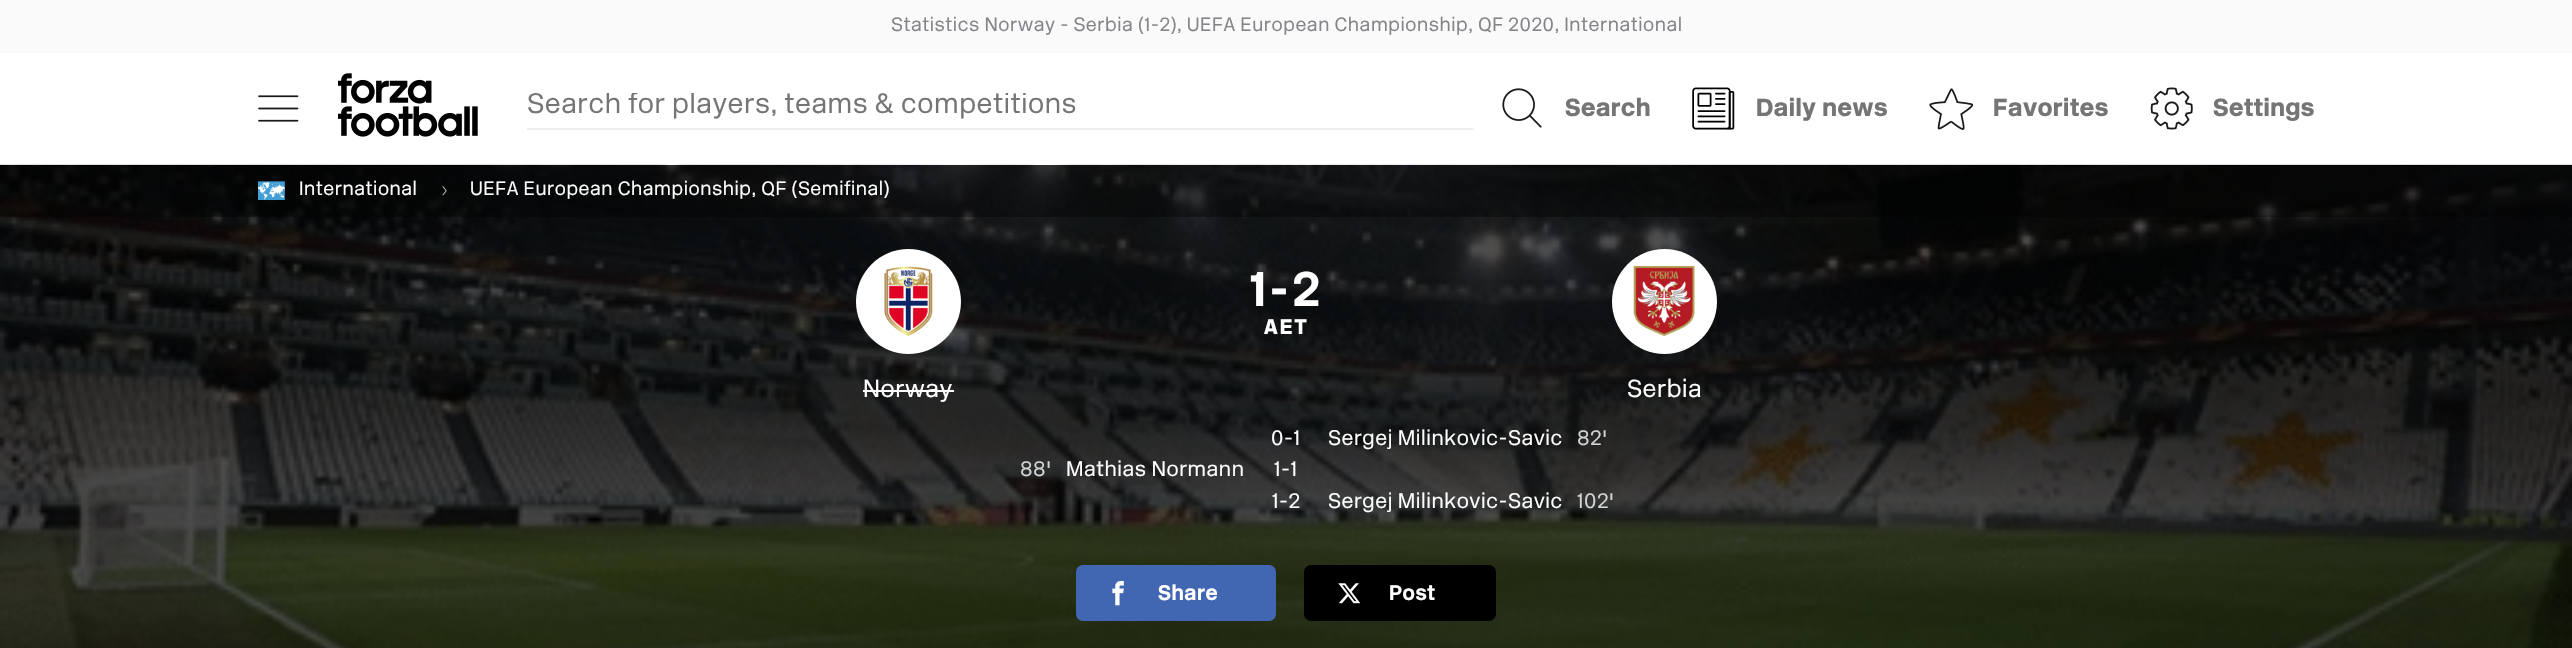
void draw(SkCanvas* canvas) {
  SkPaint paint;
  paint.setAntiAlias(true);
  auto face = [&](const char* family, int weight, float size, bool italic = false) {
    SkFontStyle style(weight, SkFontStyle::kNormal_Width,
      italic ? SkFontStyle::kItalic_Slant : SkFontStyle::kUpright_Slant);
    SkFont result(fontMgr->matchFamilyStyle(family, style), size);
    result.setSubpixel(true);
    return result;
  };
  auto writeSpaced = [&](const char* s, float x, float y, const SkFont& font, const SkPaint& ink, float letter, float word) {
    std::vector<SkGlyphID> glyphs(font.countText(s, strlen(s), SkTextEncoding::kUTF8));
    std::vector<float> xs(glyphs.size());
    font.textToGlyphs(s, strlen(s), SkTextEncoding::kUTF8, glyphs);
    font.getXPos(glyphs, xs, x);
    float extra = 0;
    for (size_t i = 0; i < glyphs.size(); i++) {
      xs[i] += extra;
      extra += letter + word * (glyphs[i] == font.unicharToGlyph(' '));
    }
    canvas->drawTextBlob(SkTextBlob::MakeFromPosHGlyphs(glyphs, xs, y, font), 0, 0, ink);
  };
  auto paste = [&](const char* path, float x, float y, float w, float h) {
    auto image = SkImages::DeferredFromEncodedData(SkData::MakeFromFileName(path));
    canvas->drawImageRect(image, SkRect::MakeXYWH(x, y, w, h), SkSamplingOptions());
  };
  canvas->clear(0xffffffff);
  paint.setColor(0xfffafafa);
  canvas->drawRect(SkRect::MakeXYWH(0, 0, 2572, 53), paint);
  paste("img/1.png", 258, 95, 41, 27);
  paste("img/2.png", 338, 73, 140, 64);
  paint.setColor(0xffefefef);
  canvas->drawRect(SkRect::MakeXYWH(527, 128, 947, 2), paint);
  paste("img/3.png", 1502, 88, 40, 40);
  paste("img/4.png", 1692, 87, 43, 43);
  paste("img/5.png", 1929, 88, 45, 42);
  paste("img/6.png", 2150, 87, 43, 43);
  paint.setColor(0xff000000);
  canvas->drawRect(SkRect::MakeXYWH(0, 165, 2572, 483), paint);
  paste("img/9.png", 0, 164, 2572, 484);
  paint.setColor(0x66000000);
  canvas->drawRect(SkRect::MakeXYWH(0, 165, 2572, 52), paint);
  paste("img/7.png", 258, 181, 27, 19);
  paste("img/8.png", 442, 186, 5, 10);
  paint.setColor(0xffffffff);
  canvas->drawCircle(908.5f, 301.5f, 52.5f, paint);
  paste("img/10.png", 884, 266, 49, 70);
  canvas->drawRect(SkRect::MakeXYWH(863, 390, 91, 2), paint);
  canvas->drawCircle(1664.5f, 301.5f, 52.5f, paint);
  paste("img/11.png", 1633, 266, 62, 70);
  paint.setColor(0xff4267b2);
  canvas->drawRoundRect(SkRect::MakeXYWH(1076, 565, 200, 56), 7, 7, paint);
  paste("img/12.png", 1112, 581, 12, 25);
  paint.setColor(0xff000000);
  canvas->drawRoundRect(SkRect::MakeXYWH(1304, 565, 192, 56), 7, 7, paint);
  paste("img/13.png", 1338, 583, 23, 21);
  auto f0 = face("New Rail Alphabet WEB", 300, 19.25f);
  paint.setColor(0xff84848a);
  writeSpaced("Statistics Norway - Serbia (1-2), UEFA European Championship, QF 2020, International", 891, 31, f0, paint, 0.53f, 0);
  canvas->save();
  canvas->clipRect(SkRect::MakeXYWH(527, 93, 947, 28));
  auto f1 = face("New Rail Alphabet WEB", 300, 28);
  paint.setColor(0xff757575);
  writeSpaced("Search for players, teams & competitions", 527, 113, f1, paint, 0.53f, 0);
  canvas->restore();
  auto f2 = face("New Rail Alphabet WEB", 900, 24.5f);
  {
    const struct { const char* s; float x, y; } items[] = {
      {"Search", 1565, 116},
      {"Daily news", 1756, 116},
      {"Favorites", 1993, 116},
      {"Settings", 2213, 116},
    };
    for (auto [s, x, y] : items) {
      writeSpaced(s, x, y, f2, paint, 0.53f, 0);
    }
  }
  paint.setColor(0xffffffff);
  writeSpaced("International", 299, 195, f0, paint, 0.53f, 0);
  writeSpaced("UEFA European Championship, QF (Semifinal)", 470, 195, f0, paint, 0.53f, 0);
  auto f3 = face("New Rail Alphabet WEB", 700, 49);
  writeSpaced("1-2", 1249, 306, f3, paint, 3.5f, 0);
  auto f4 = face("New Rail Alphabet WEB", 900, 21);
  writeSpaced("AET", 1264, 334, f4, paint, 2, 0);
  auto f5 = face("New Rail Alphabet WEB", 300, 24.5f);
  writeSpaced("Norway", 863, 397, f5, paint, 0.53f, 0);
  writeSpaced("Serbia", 1627, 397, f5, paint, 0.53f, 0);
  auto f6 = face("New Rail Alphabet WEB", 300, 21);
  writeSpaced("0-1", 1271, 445, f6, paint, 0.53f, 0);
  writeSpaced("Sergej Milinkovic-Savic", 1328, 445, f6, paint, 0.53f, 0);
  paint.setColor(0xffd3d3d3);
  writeSpaced("82'", 1577, 445, f6, paint, 0.53f, 0);
  writeSpaced("88'", 1020, 476, f6, paint, 0.53f, 0);
  paint.setColor(0xffffffff);
  {
    const struct { const char* s; float x, y; } items[] = {
      {"Mathias Normann", 1066, 476},
      {"1-1", 1274, 476},
      {"1-2", 1272, 508},
      {"Sergej Milinkovic-Savic", 1328, 508},
    };
    for (auto [s, x, y] : items) {
      writeSpaced(s, x, y, f6, paint, 0.53f, 0);
    }
  }
  paint.setColor(0xffd3d3d3);
  writeSpaced("102'", 1577, 508, f6, paint, 0.53f, 0);
  auto f7 = face("New Rail Alphabet WEB", 700, 21);
  paint.setColor(0xffffffff);
  writeSpaced("Share", 1158, 600, f7, paint, 0.53f, 0);
  writeSpaced("Post", 1389, 600, f7, paint, 0.53f, 0);
}
